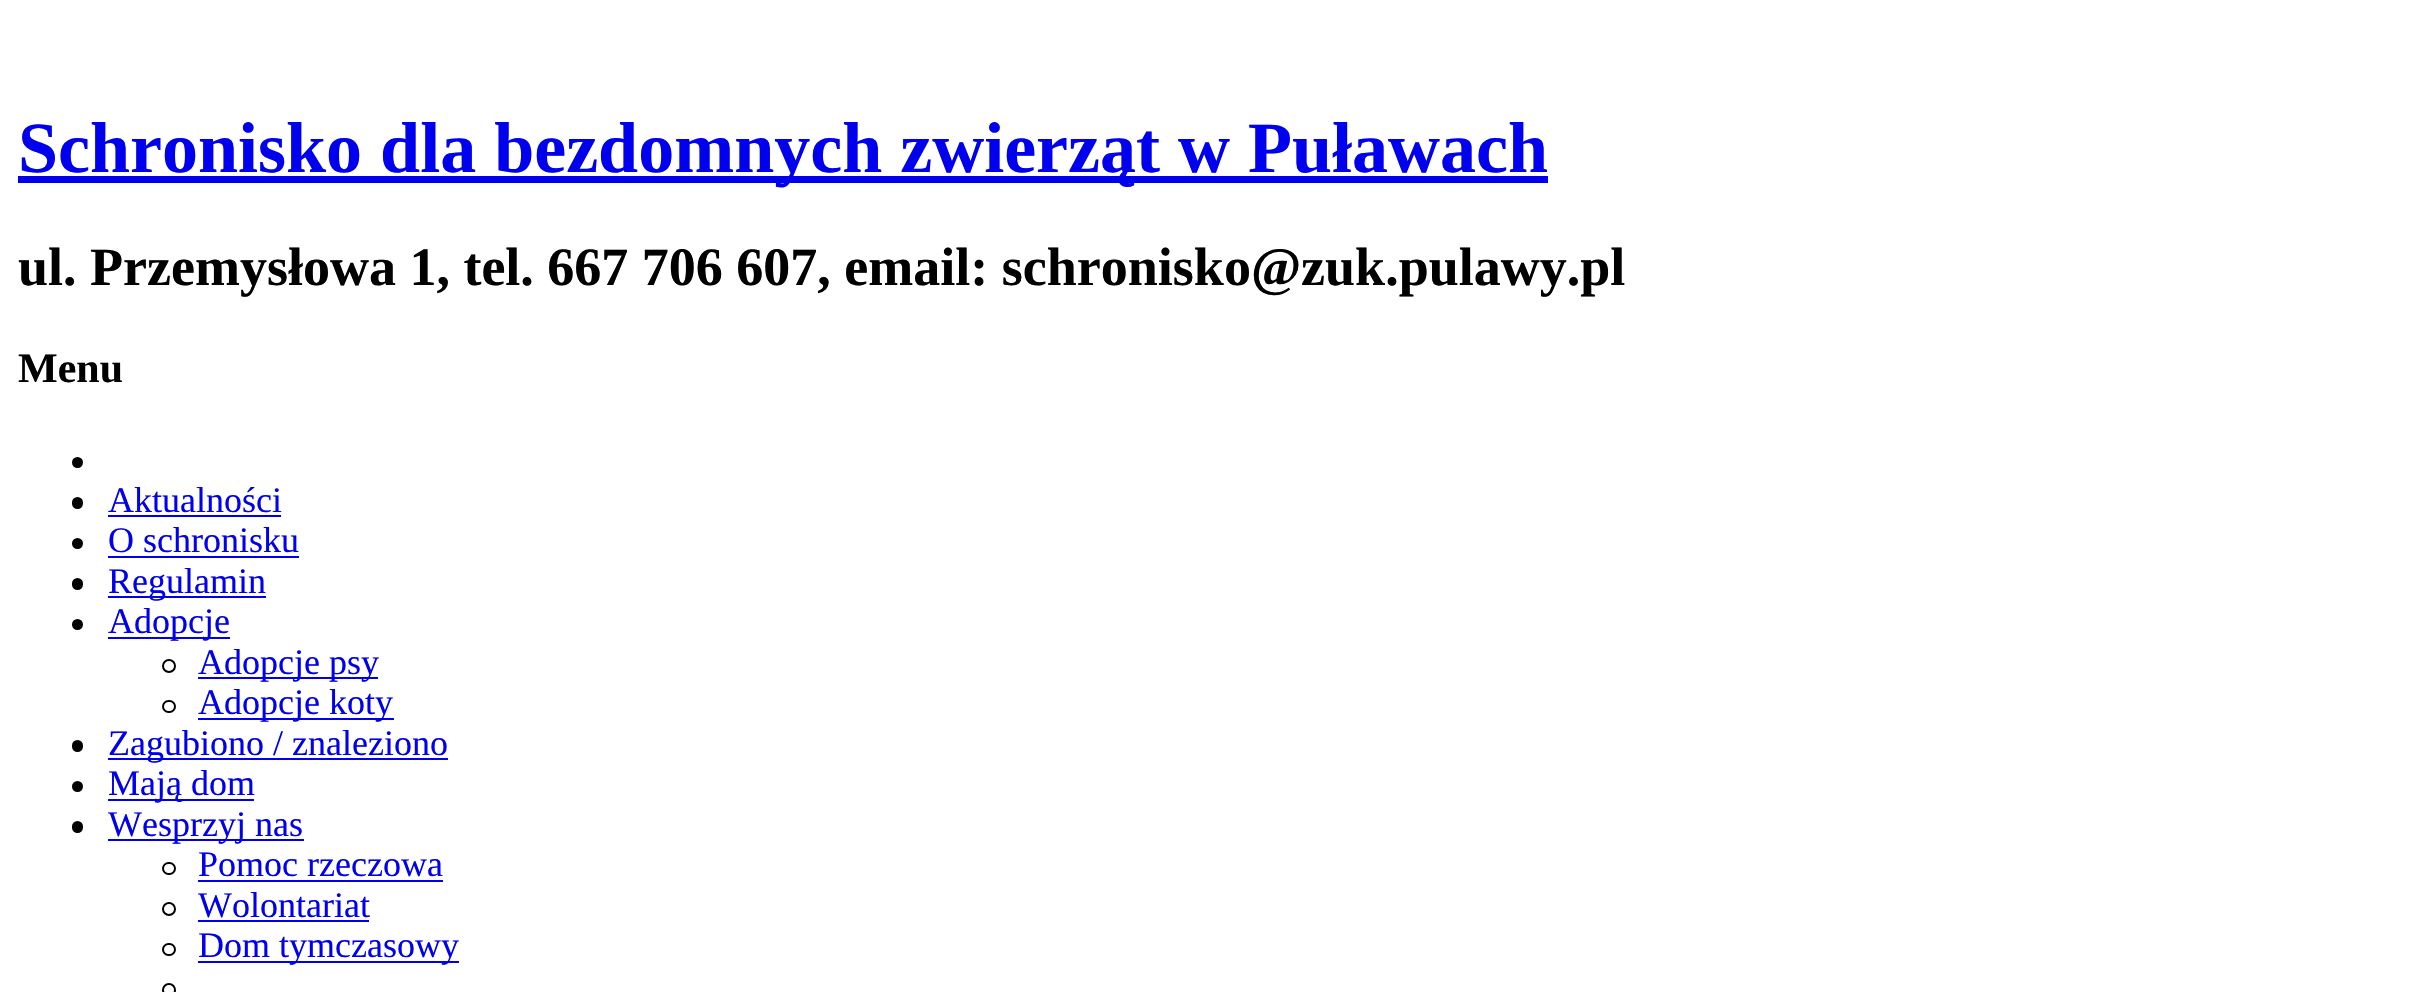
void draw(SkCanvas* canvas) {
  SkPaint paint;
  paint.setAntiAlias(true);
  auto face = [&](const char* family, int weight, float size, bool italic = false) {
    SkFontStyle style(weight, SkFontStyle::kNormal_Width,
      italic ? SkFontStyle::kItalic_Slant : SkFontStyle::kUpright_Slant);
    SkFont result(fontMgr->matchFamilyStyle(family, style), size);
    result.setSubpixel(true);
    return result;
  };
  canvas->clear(0xffffffff);
  paint.setColor(0xff0000ee);
  canvas->drawRect(SkRect::MakeXYWH(18, 176, 1530, 7), paint);
  paint.setColor(0xff000000);
  canvas->drawCircle(77.5f, 462.5f, 5.5f, paint);
  canvas->drawRoundRect(SkRect::MakeXYWH(72, 497, 11, 12), 5.5f, 5.5f, paint);
  paint.setColor(0xff0000ee);
  canvas->drawRect(SkRect::MakeXYWH(108, 515, 173, 2), paint);
  paint.setColor(0xff000000);
  canvas->drawCircle(77.5f, 543.5f, 5.5f, paint);
  paint.setColor(0xff0000ee);
  canvas->drawRect(SkRect::MakeXYWH(108, 556, 191, 2), paint);
  paint.setColor(0xff000000);
  canvas->drawRoundRect(SkRect::MakeXYWH(72, 578, 11, 12), 5.5f, 5.5f, paint);
  paint.setColor(0xff0000ee);
  canvas->drawRect(SkRect::MakeXYWH(108, 596, 158, 2), paint);
  paint.setColor(0xff000000);
  canvas->drawCircle(77.5f, 624.5f, 5.5f, paint);
  paint.setColor(0xff0000ee);
  canvas->drawRect(SkRect::MakeXYWH(108, 637, 122, 2), paint);
  paint.setStroke(true);
  paint.setStrokeWidth(2);
  paint.setColor(0xff000000);
  canvas->drawCircle(169, 666, 6, paint);
  paint.setStroke(false);
  paint.setColor(0xff0000ee);
  canvas->drawRect(SkRect::MakeXYWH(198, 677, 180, 2), paint);
  paint.setStroke(true);
  paint.setColor(0xff000000);
  canvas->drawRoundRect(SkRect::MakeXYWH(163, 701, 12, 11), 5.5f, 5.5f, paint);
  paint.setStroke(false);
  paint.setColor(0xff0000ee);
  canvas->drawRect(SkRect::MakeXYWH(198, 718, 196, 2), paint);
  paint.setColor(0xff000000);
  canvas->drawRoundRect(SkRect::MakeXYWH(72, 740, 11, 12), 5.5f, 5.5f, paint);
  paint.setColor(0xff0000ee);
  canvas->drawRect(SkRect::MakeXYWH(108, 758, 340, 2), paint);
  paint.setColor(0xff000000);
  canvas->drawCircle(77.5f, 786.5f, 5.5f, paint);
  paint.setColor(0xff0000ee);
  canvas->drawRect(SkRect::MakeXYWH(108, 799, 146, 2), paint);
  paint.setColor(0xff000000);
  canvas->drawRoundRect(SkRect::MakeXYWH(72, 821, 11, 12), 5.5f, 5.5f, paint);
  paint.setColor(0xff0000ee);
  canvas->drawRect(SkRect::MakeXYWH(108, 839, 196, 2), paint);
  paint.setStroke(true);
  paint.setColor(0xff000000);
  canvas->drawRoundRect(SkRect::MakeXYWH(163, 863, 12, 11), 5.5f, 5.5f, paint);
  paint.setStroke(false);
  paint.setColor(0xff0000ee);
  canvas->drawRect(SkRect::MakeXYWH(198, 880, 245, 2), paint);
  paint.setStroke(true);
  paint.setColor(0xff000000);
  canvas->drawCircle(169, 909, 6, paint);
  paint.setStroke(false);
  paint.setColor(0xff0000ee);
  canvas->drawRect(SkRect::MakeXYWH(198, 920, 171, 2), paint);
  paint.setStroke(true);
  paint.setColor(0xff000000);
  canvas->drawRoundRect(SkRect::MakeXYWH(163, 944, 12, 11), 5.5f, 5.5f, paint);
  paint.setStroke(false);
  paint.setColor(0xff0000ee);
  canvas->drawRect(SkRect::MakeXYWH(198, 961, 261, 2), paint);
  paint.setStroke(true);
  paint.setColor(0xff000000);
  canvas->drawCircle(169, 990, 6, paint);
  auto f0 = face("Liberation Serif", 700, 72);
  paint.setStroke(false);
  paint.setColor(0xff0000ee);
  canvas->drawString("Schronisko dla bezdomnych zwierząt w Puławach", 18, 172, f0, paint);
  auto f1 = face("Liberation Serif", 700, 54);
  paint.setColor(0xff000000);
  canvas->drawString("ul. Przemysłowa 1, tel. 667 706 607, email: schronisko@zuk.pulawy.pl", 18, 285, f1, paint);
  auto f2 = face("Liberation Serif", 700, 42);
  canvas->drawString("Menu", 18, 382, f2, paint);
  auto f3 = face("Liberation Serif", 400, 36);
  paint.setColor(0xff0000ee);
  {
    const struct { const char* s; float x, y; } items[] = {
      {"Aktualności", 108, 512},
      {"O schronisku", 108, 552},
      {"Regulamin", 108, 593},
      {"Adopcje", 108, 633},
      {"Adopcje psy", 198, 674},
      {"Adopcje koty", 198, 714},
      {"Zagubiono / znaleziono", 108, 755},
      {"Mają dom", 108, 795},
      {"Wesprzyj nas", 108, 836},
      {"Pomoc rzeczowa", 198, 876},
      {"Wolontariat", 198, 917},
      {"Dom tymczasowy", 198, 957},
    };
    for (auto [s, x, y] : items) {
      canvas->drawString(s, x, y, f3, paint);
    }
  }
}
